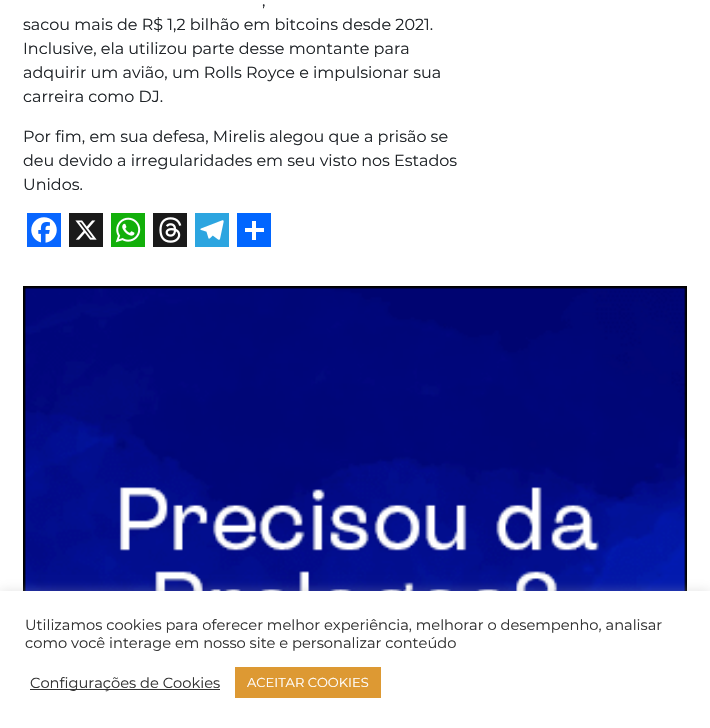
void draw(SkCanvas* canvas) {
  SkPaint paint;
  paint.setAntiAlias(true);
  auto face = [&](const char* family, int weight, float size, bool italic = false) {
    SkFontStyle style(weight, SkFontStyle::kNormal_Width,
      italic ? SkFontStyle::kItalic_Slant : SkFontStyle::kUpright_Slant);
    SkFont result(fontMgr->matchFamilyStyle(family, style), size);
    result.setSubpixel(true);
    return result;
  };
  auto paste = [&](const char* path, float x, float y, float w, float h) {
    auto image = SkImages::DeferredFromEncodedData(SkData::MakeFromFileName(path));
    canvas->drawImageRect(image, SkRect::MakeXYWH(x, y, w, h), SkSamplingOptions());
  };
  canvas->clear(0xffffffff);
  paint.setColor(0xff0866ff);
  canvas->drawRect(SkRect::MakeXYWH(27, 213, 34, 34), paint);
  paste("img/1.png", 31, 217, 26, 26);
  paint.setColor(0xff1a1a1a);
  canvas->drawRect(SkRect::MakeXYWH(69, 213, 34, 34), paint);
  paste("img/2.png", 75, 220, 22, 20);
  paint.setColor(0xff12af0a);
  canvas->drawRect(SkRect::MakeXYWH(111, 213, 34, 34), paint);
  paste("img/3.png", 115, 217, 26, 26);
  paint.setColor(0xff1a1a1a);
  canvas->drawRect(SkRect::MakeXYWH(153, 213, 34, 34), paint);
  paste("img/4.png", 159, 217, 23, 26);
  paint.setColor(0xff2ca5e0);
  canvas->drawRect(SkRect::MakeXYWH(195, 213, 34, 34), paint);
  paste("img/5.png", 200, 220, 24, 20);
  {
    const struct { float x, y, w, h; SkColor color; } items[] = {
      {237, 213, 34, 34, 0xff0166ff},
      {252, 221, 4, 19, 0xffffffff},
      {245, 228, 19, 4, 0xffffffff},
    };
    for (auto [x, y, w, h, color] : items) {
      paint.setColor(color);
      canvas->drawRect(SkRect::MakeXYWH(x, y, w, h), paint);
    }
  }
  paste("img/6.png", 23, 286, 664, 305);
  paint.setColor(0x4dacabab);
  paint.setMaskFilter(SkMaskFilter::MakeBlur(kNormal_SkBlurStyle, 5));
  canvas->drawRect(SkRect::MakeXYWH(0, 590, 710, 137), paint);
  paint.setMaskFilter(nullptr);
  {
    const struct { float x, y, w, h; SkColor color; } items[] = {
      {0, 591, 710, 137, 0xffffffff},
      {30, 689, 190, 1, 0xff333333},
      {235, 667, 146, 31, 0xffdd9933},
    };
    for (auto [x, y, w, h, color] : items) {
      paint.setColor(color);
      canvas->drawRect(SkRect::MakeXYWH(x, y, w, h), paint);
    }
  }
  auto f0 = face("Montserrat", 400, 16);
  paint.setColor(0xff212529);
  {
    const struct { const char* s; float x, y; } items[] = {
      {",", 262, 6},
      {"sacou mais de R$ 1,2 bilhão em bitcoins desde 2021.", 23, 30},
      {"Inclusive, ela utilizou parte desse montante para", 23, 54},
      {"adquirir um avião, um Rolls Royce e impulsionar sua", 23, 78},
      {"carreira como DJ.", 23, 102},
      {"Por fim, em sua defesa, Mirelis alegou que a prisão se", 23, 142},
      {"deu devido a irregularidades em seu visto nos Estados", 23, 166},
      {"Unidos.", 23, 190},
    };
    for (auto [s, x, y] : items) {
      canvas->drawString(s, x, y, f0, paint);
    }
  }
  auto f1 = face("Montserrat", 400, 14.65f);
  paint.setColor(0xff333333);
  {
    const struct { const char* s; float x, y; } items[] = {
      {"Utilizamos cookies para oferecer melhor experiência, melhorar o desempenho, analisar", 25, 630},
      {"como você interage em nosso site e personalizar conteúdo", 25, 648},
      {"Configurações de Cookies", 30, 688},
    };
    for (auto [s, x, y] : items) {
      canvas->drawString(s, x, y, f1, paint);
    }
  }
  auto f2 = face("Montserrat", 400, 13);
  paint.setColor(0xffffffff);
  canvas->drawString("ACEITAR COOKIES", 247, 687, f2, paint);
}
